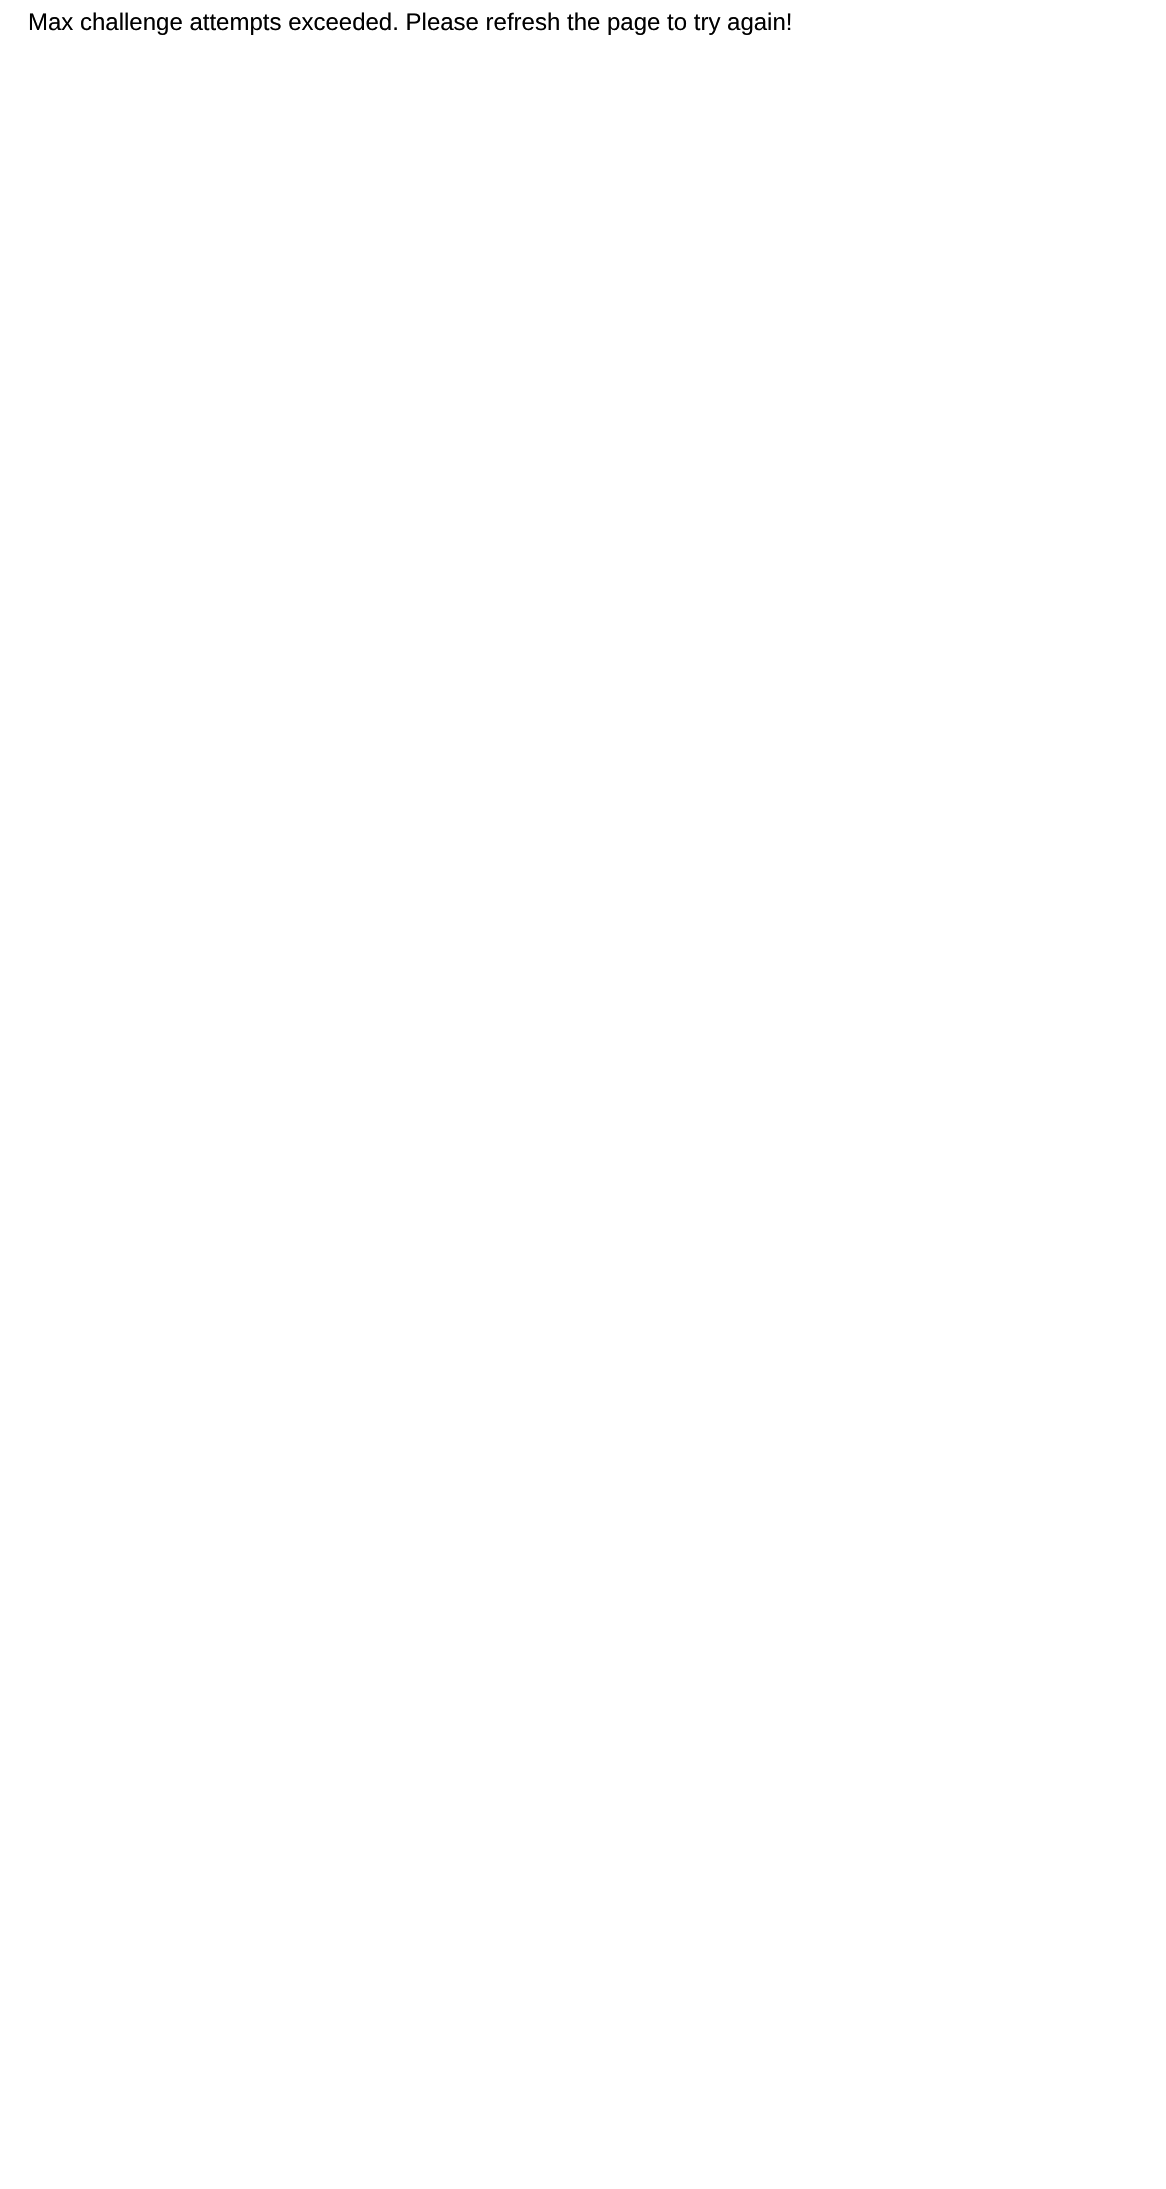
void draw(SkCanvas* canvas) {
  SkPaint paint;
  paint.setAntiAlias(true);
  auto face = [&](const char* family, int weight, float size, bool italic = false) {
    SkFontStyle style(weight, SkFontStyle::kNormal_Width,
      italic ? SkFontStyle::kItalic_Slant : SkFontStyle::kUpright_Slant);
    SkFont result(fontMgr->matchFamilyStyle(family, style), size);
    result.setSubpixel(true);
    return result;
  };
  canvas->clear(0xffffffff);
  auto f0 = face("Liberation Sans", 400, 24);
  paint.setColor(0xff000000);
  canvas->drawString("Max challenge attempts exceeded. Please refresh the page to try again!", 28, 30, f0, paint);
}
